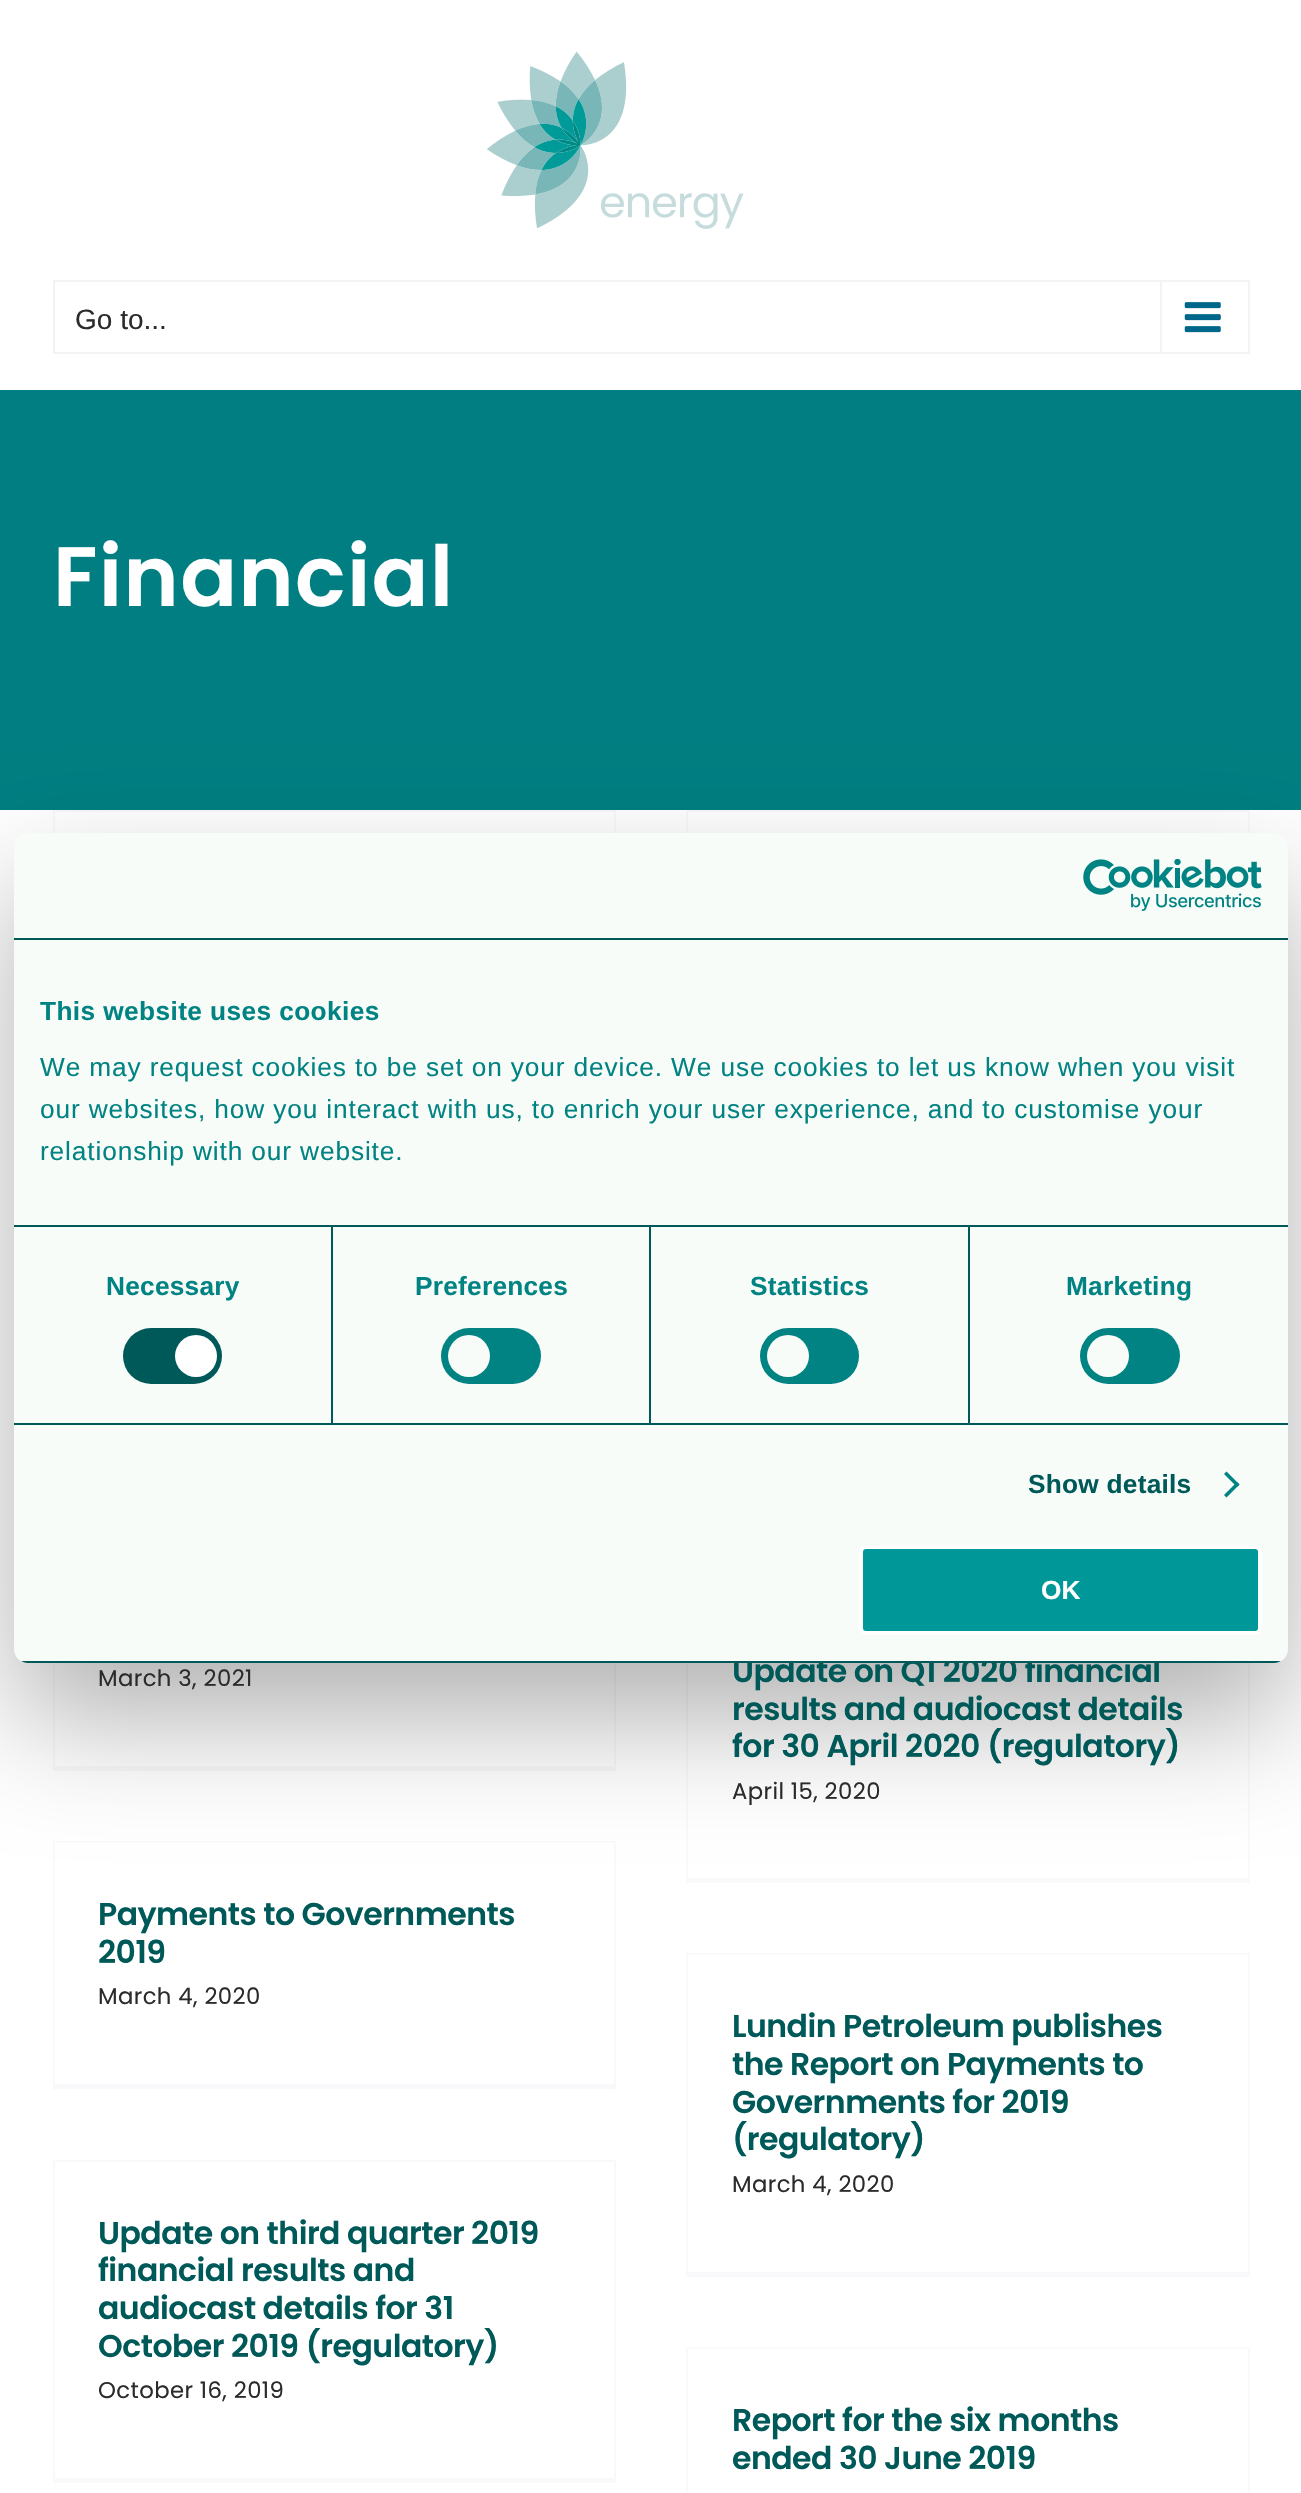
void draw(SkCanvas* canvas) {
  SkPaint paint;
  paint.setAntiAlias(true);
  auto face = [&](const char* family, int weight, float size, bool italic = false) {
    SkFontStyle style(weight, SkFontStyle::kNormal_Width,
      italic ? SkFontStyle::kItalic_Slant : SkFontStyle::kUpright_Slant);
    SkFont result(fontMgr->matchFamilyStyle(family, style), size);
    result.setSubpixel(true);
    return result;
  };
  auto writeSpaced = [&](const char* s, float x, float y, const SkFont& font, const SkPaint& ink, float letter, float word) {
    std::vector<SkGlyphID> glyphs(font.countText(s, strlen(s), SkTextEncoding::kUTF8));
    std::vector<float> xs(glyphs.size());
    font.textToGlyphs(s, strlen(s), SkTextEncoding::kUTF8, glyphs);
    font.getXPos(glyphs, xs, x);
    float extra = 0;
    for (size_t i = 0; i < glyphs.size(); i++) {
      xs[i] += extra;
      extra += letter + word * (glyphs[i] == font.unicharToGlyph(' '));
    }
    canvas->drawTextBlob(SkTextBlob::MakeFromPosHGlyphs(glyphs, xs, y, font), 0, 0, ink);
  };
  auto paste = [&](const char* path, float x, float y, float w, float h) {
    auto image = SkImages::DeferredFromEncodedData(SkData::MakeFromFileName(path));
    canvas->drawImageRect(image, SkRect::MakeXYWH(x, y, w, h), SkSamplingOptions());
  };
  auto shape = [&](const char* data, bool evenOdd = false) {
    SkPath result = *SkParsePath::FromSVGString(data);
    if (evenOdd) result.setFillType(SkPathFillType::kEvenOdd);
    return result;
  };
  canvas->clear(0xffffffff);
  paste("img/1.png", 487, 51, 257, 178);
  paint.setStroke(true);
  paint.setStrokeWidth(2);
  paint.setColor(0xfff2f3f5);
  canvas->drawRect(SkRect::MakeXYWH(54, 281, 1195, 72), paint);
  paint.setStroke(false);
  canvas->drawRect(SkRect::MakeXYWH(1160, 282, 2, 70), paint);
  paste("img/2.png", 1184, 302, 37, 31);
  {
    const struct { float x, y, w, h; SkColor color; } items[] = {
      {0, 390, 1301, 420, 0xff007e81},
      {53, 810, 563, 2, 0xfff9f9fb},
      {614, 810, 2, 23, 0xfff9f9fb},
      {53, 810, 2, 23, 0xfff9f9fb},
      {686, 810, 564, 2, 0xfff9f9fb},
      {1248, 810, 2, 23, 0xfff9f9fb},
      {686, 810, 2, 23, 0xfff9f9fb},
      {614, 1663, 2, 108, 0xfff9f9fb},
      {53, 1766, 563, 5, 0xfff9f9fb},
      {53, 1663, 2, 108, 0xfff9f9fb},
      {1248, 1663, 2, 220, 0xfff9f9fb},
      {686, 1878, 564, 5, 0xfff9f9fb},
      {686, 1663, 2, 220, 0xfff9f9fb},
      {53, 1841, 563, 2, 0xfff9f9fb},
      {614, 1841, 2, 249, 0xfff9f9fb},
      {53, 2084, 563, 5, 0xfff9f9fb},
      {53, 1841, 2, 249, 0xfff9f9fb},
      {686, 1953, 564, 2, 0xfff9f9fb},
      {1248, 1953, 2, 324, 0xfff9f9fb},
      {686, 2272, 564, 5, 0xfff9f9fb},
      {686, 1953, 2, 324, 0xfff9f9fb},
      {53, 2160, 563, 2, 0xfff9f9fb},
      {614, 2160, 2, 323, 0xfff9f9fb},
      {53, 2478, 563, 5, 0xfff9f9fb},
      {53, 2160, 2, 323, 0xfff9f9fb},
      {686, 2347, 564, 2, 0xfff9f9fb},
      {1248, 2347, 2, 146, 0xfff9f9fb},
      {686, 2347, 2, 146, 0xfff9f9fb},
    };
    for (auto [x, y, w, h, color] : items) {
      paint.setColor(color);
      canvas->drawRect(SkRect::MakeXYWH(x, y, w, h), paint);
    }
  }
  paint.setColor(0x4d000000);
  paint.setMaskFilter(SkMaskFilter::MakeBlur(kNormal_SkBlurStyle, 59.5f));
  canvas->drawRoundRect(SkRect::MakeXYWH(14, 889, 1274, 830), 14, 14, paint);
  paint.setMaskFilter(nullptr);
  auto f0 = face("Liberation Sans", 400, 28);
  paint.setColor(0xff2b2b2b);
  canvas->drawString("Go to...", 75, 329, f0, paint);
  auto f1 = face("Poppins", 600, 84);
  paint.setColor(0xffffffff);
  writeSpaced("Financial", 53, 606, f1, paint, 1.25f, 0);
  auto f2 = face("Poppins", 400, 22.75f);
  paint.setColor(0xff2b2b2b);
  writeSpaced("March 3, 2021", 98, 1686, f2, paint, 0.4f, 0);
  auto f3 = face("Poppins", 600, 31.5f);
  paint.setColor(0xff005959);
  {
    const struct { const char* s; float x, y; } items[] = {
      {"Update on Q1 2020 financial", 732, 1682},
      {"results and audiocast details", 732, 1720},
      {"for 30 April 2020 (regulatory)", 732, 1757},
    };
    for (auto [s, x, y] : items) {
      writeSpaced(s, x, y, f3, paint, -0.5f, 0);
    }
  }
  paint.setColor(0xff2b2b2b);
  writeSpaced("April 15, 2020", 732, 1799, f2, paint, 0.4f, 0);
  paint.setColor(0xff005959);
  writeSpaced("Payments to Governments", 98, 1925, f3, paint, -0.5f, 0);
  writeSpaced("2019", 98, 1963, f3, paint, -0.5f, 0);
  paint.setColor(0xff2b2b2b);
  writeSpaced("March 4, 2020", 98, 2004, f2, paint, 0.4f, 0);
  paint.setColor(0xff005959);
  {
    const struct { const char* s; float x, y; } items[] = {
      {"Lundin Petroleum publishes", 732, 2037},
      {"the Report on Payments to", 732, 2075},
      {"Governments for 2019", 732, 2113},
      {"(regulatory)", 732, 2150},
    };
    for (auto [s, x, y] : items) {
      writeSpaced(s, x, y, f3, paint, -0.5f, 0);
    }
  }
  paint.setColor(0xff2b2b2b);
  writeSpaced("March 4, 2020", 732, 2192, f2, paint, 0.4f, 0);
  paint.setColor(0xff005959);
  {
    const struct { const char* s; float x, y; } items[] = {
      {"Update on third quarter 2019", 98, 2244},
      {"financial results and", 98, 2281},
      {"audiocast details for 31", 98, 2319},
      {"October 2019 (regulatory)", 98, 2357},
    };
    for (auto [s, x, y] : items) {
      writeSpaced(s, x, y, f3, paint, -0.5f, 0);
    }
  }
  paint.setColor(0xff2b2b2b);
  writeSpaced("October 16, 2019", 98, 2398, f2, paint, 0.4f, 0);
  paint.setColor(0xff005959);
  writeSpaced("Report for the six months", 732, 2431, f3, paint, -0.5f, 0);
  writeSpaced("ended 30 June 2019", 732, 2469, f3, paint, -0.5f, 0);
  paint.setColor(0xfff7fcf8);
  canvas->drawRoundRect(SkRect::MakeXYWH(14, 833, 1274, 830), 14, 14, paint);
  paint.setColor(0xff005959);
  canvas->drawRect(SkRect::MakeXYWH(14, 938, 1274, 2), paint);
  paste("img/3.png", 1083, 859, 179, 52);
  canvas->drawRect(SkRect::MakeXYWH(14, 1225, 1274, 2), paint);
  auto f4 = face("Liberation Sans", 700, 26.25f);
  paint.setColor(0xff008382);
  writeSpaced("This website uses cookies", 40, 1020, f4, paint, 0.4f, 0);
  auto f5 = face("Liberation Sans", 400, 26.25f);
  {
    const struct { const char* s; float x, y; } items[] = {
      {"We may request cookies to be set on your device. We use cookies to let us know when you visit", 40, 1076},
      {"our websites, how you interact with us, to enrich your user experience, and to customise your", 40, 1118},
      {"relationship with our website.", 40, 1160},
    };
    for (auto [s, x, y] : items) {
      writeSpaced(s, x, y, f5, paint, 0.88f, 0);
    }
  }
  paint.setColor(0xff005959);
  canvas->drawRect(SkRect::MakeXYWH(14, 1423, 1274, 2), paint);
  canvas->drawRect(SkRect::MakeXYWH(331, 1227, 2, 196), paint);
  paint.setColor(0xff008382);
  writeSpaced("Necessary", 106, 1295, f4, paint, 0.25f, 0);
  paint.setColor(0xff005959);
  canvas->drawRoundRect(SkRect::MakeXYWH(123, 1328, 99, 56), 28, 28, paint);
  paint.setColor(0xffffffff);
  canvas->drawCircle(196, 1356, 21, paint);
  paint.setColor(0xff005959);
  canvas->drawRect(SkRect::MakeXYWH(649, 1227, 2, 196), paint);
  paint.setColor(0xff008382);
  writeSpaced("Preferences", 415, 1295, f4, paint, 0.25f, 0);
  canvas->drawRoundRect(SkRect::MakeXYWH(441, 1328, 100, 56), 28, 28, paint);
  paint.setColor(0xfff7fcf8);
  canvas->drawCircle(469, 1356, 21, paint);
  paint.setColor(0xff005959);
  canvas->drawRect(SkRect::MakeXYWH(968, 1227, 2, 196), paint);
  paint.setColor(0xff008382);
  writeSpaced("Statistics", 750, 1295, f4, paint, 0.25f, 0);
  canvas->drawRoundRect(SkRect::MakeXYWH(760, 1328, 99, 56), 28, 28, paint);
  paint.setColor(0xfff7fcf8);
  canvas->drawCircle(788, 1356, 21, paint);
  paint.setColor(0xff008382);
  writeSpaced("Marketing", 1066, 1295, f4, paint, 0.25f, 0);
  canvas->drawRoundRect(SkRect::MakeXYWH(1080, 1328, 100, 56), 28, 28, paint);
  paint.setColor(0xfff7fcf8);
  canvas->drawCircle(1108, 1356, 21, paint);
  paint.setColor(0xff005959);
  writeSpaced("Show details", 1028, 1493, f4, paint, 0.25f, 0);
  paint.setColor(0xff008382);
  canvas->drawPath(shape("M1226.5 1471.5L1239.5 1484.5L1237 1487L1224 1474Z"), paint);
  canvas->drawPath(shape("M1237 1482L1239.5 1484.5L1226.5 1497.5L1224 1495Z"), paint);
  canvas->save();
  canvas->clipPath(shape("M28 833H1274C1281.5 833 1288 839.5 1288 847V1649C1288 1656.5 1281.5 1663 1274 1663H28C20.5 1663 14 1656.5 14 1649V847C14 839.5 20.5 833 28 833Z"), true);
  paint.setColor(0xff005959);
  canvas->drawRect(SkRect::MakeXYWH(14, 1661, 1274, 2), paint);
  canvas->restore();
  paint.setColor(0xff009798);
  canvas->drawRoundRect(SkRect::MakeXYWH(861, 1547, 399, 86), 5, 5, paint);
  paint.setStroke(true);
  paint.setStrokeWidth(4);
  paint.setColor(0xffffffff);
  canvas->drawRoundRect(SkRect::MakeXYWH(861, 1547, 399, 86), 5, 5, paint);
  paint.setStroke(false);
  canvas->drawString("OK", 1041, 1599, f4, paint);
}
